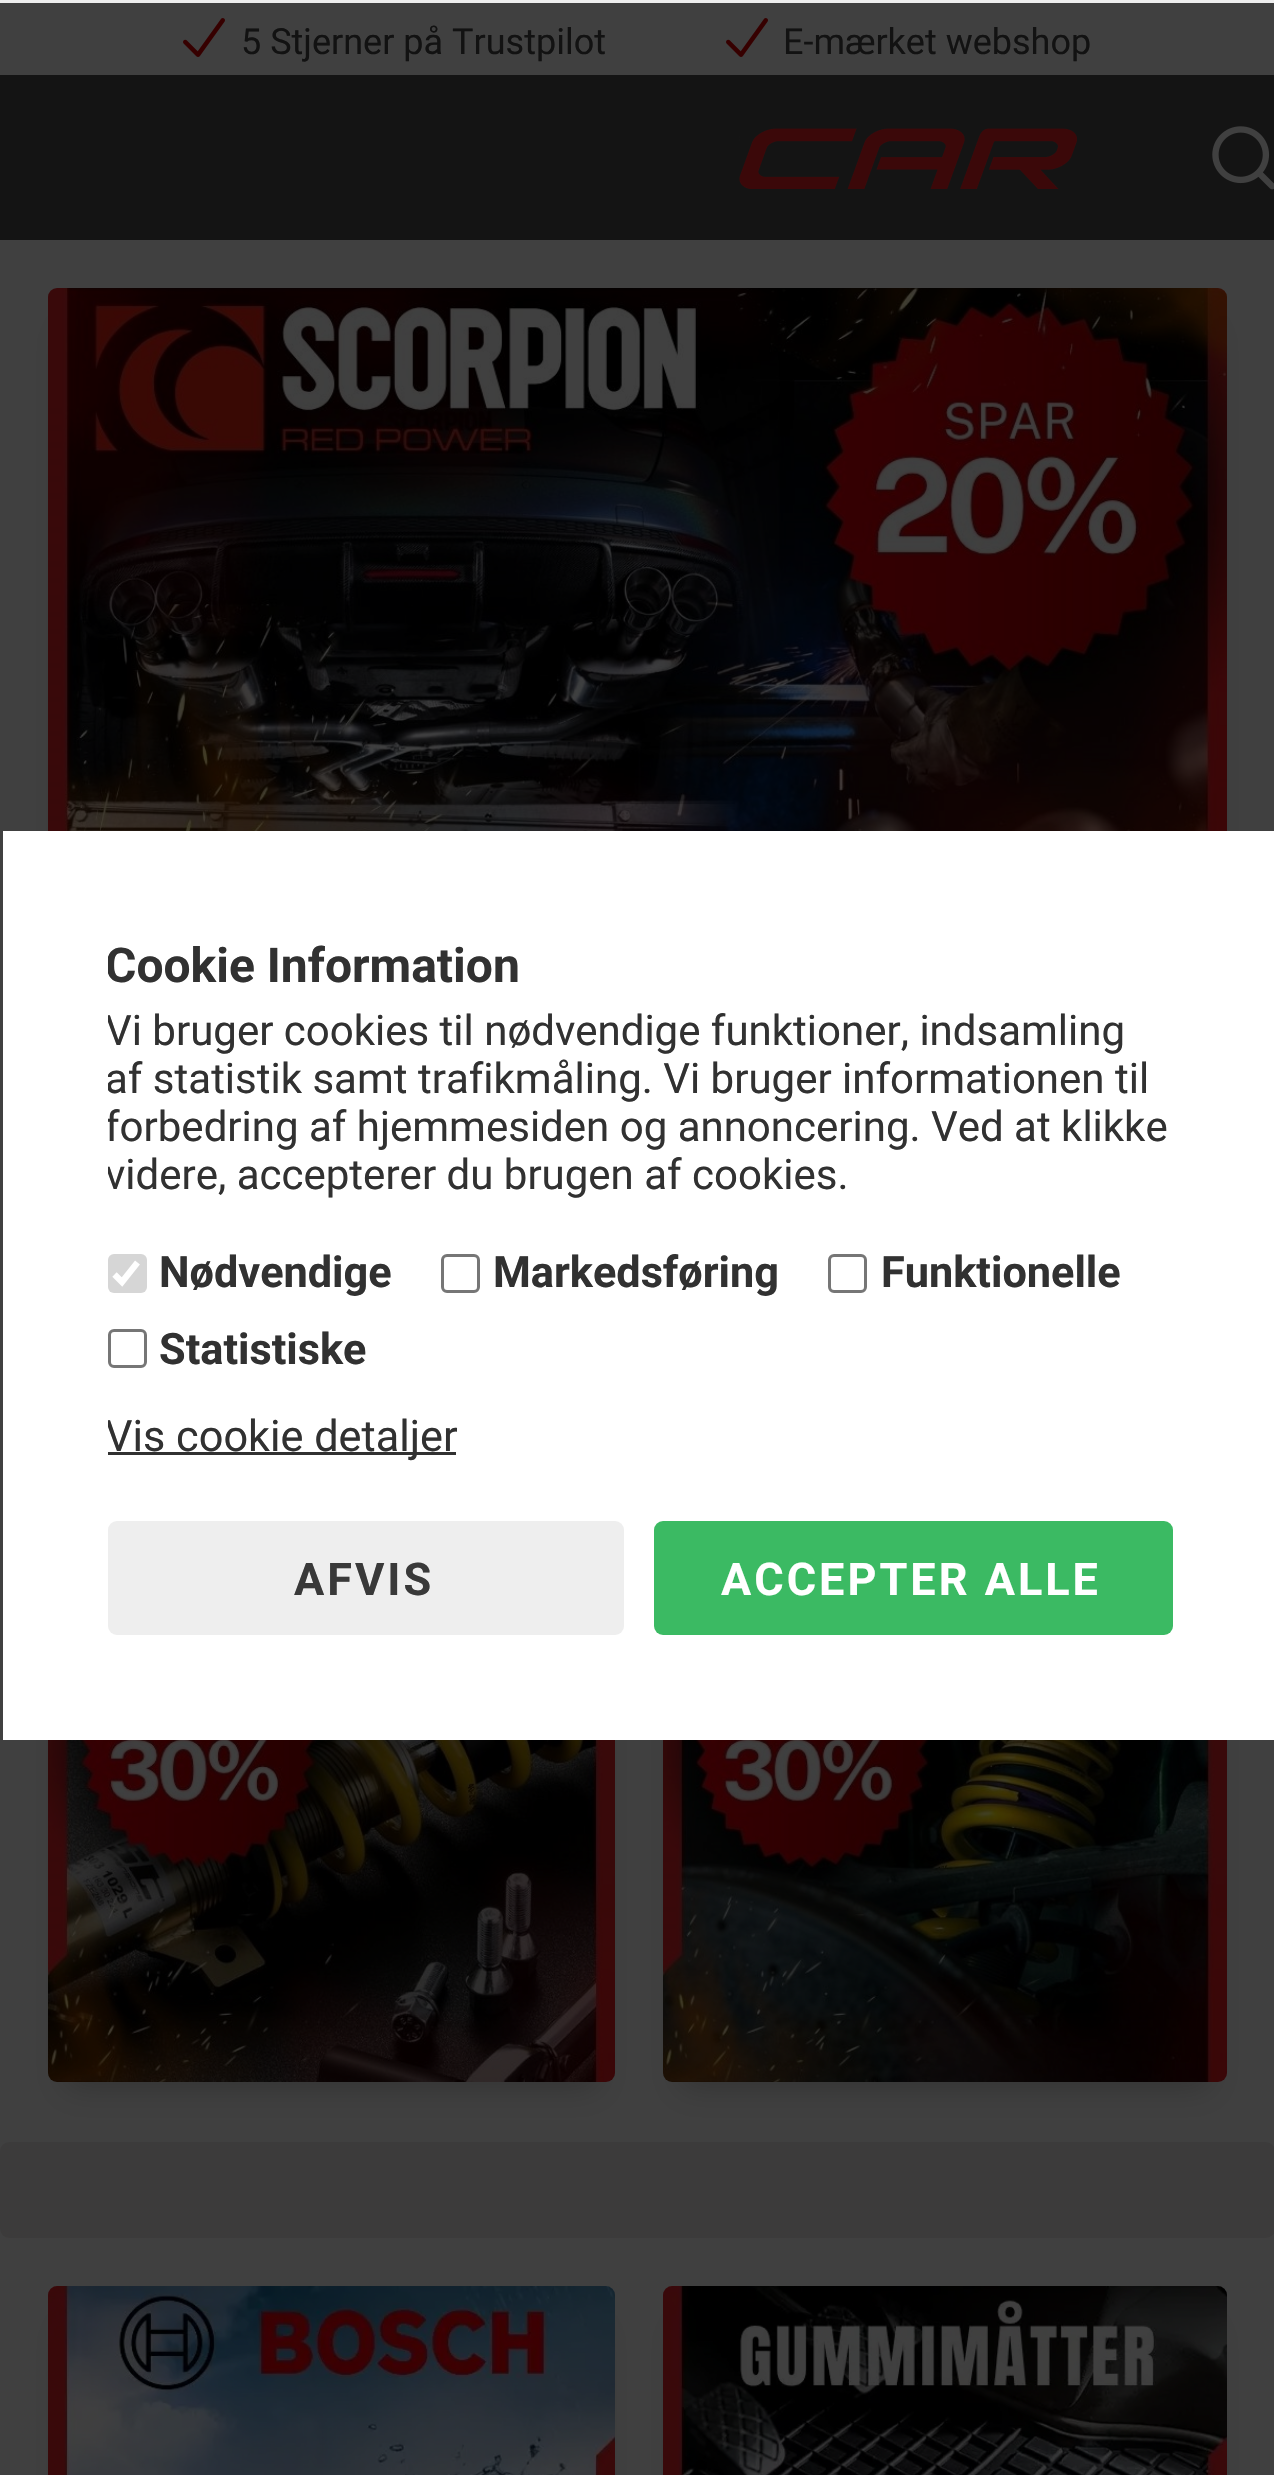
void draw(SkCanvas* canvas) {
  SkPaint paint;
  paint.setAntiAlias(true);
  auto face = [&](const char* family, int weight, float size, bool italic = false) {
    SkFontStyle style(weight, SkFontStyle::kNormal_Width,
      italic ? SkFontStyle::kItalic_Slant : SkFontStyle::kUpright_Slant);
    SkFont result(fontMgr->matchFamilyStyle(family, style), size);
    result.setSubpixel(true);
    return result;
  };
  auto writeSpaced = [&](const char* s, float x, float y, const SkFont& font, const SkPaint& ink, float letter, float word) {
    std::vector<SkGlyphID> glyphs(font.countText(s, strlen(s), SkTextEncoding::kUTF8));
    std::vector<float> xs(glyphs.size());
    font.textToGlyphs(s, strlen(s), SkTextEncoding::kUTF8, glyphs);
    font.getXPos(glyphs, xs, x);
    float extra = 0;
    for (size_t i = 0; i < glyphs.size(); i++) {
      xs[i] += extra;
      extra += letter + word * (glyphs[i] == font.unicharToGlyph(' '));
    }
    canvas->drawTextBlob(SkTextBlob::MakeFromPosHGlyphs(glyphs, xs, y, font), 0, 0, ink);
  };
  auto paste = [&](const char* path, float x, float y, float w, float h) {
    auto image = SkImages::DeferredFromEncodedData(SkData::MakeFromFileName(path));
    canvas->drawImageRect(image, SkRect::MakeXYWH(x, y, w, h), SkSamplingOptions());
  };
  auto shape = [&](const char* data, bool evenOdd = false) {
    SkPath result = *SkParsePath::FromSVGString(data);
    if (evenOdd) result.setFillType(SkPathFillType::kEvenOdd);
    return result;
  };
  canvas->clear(0xff404040);
  paste("img/1.png", 183, 18, 42, 39);
  paste("img/1.png", 726, 18, 42, 39);
  paint.setColor(0xff141414);
  canvas->drawRect(SkRect::MakeXYWH(0, 75, 1274, 165), paint);
  paste("img/2.png", 739, 128, 338, 61);
  paste("img/3.png", 1212, 126, 62, 64);
  paint.setColor(0x33000000);
  paint.setMaskFilter(SkMaskFilter::MakeBlur(kNormal_SkBlurStyle, 15));
  canvas->drawRect(SkRect::MakeXYWH(66, 330, 1143, 531), paint);
  paint.setMaskFilter(nullptr);
  paste("img/4.png", 48, 288, 1179, 543);
  paint.setMaskFilter(SkMaskFilter::MakeBlur(kNormal_SkBlurStyle, 15));
  canvas->drawRect(SkRect::MakeXYWH(66, 1557, 531, 531), paint);
  paint.setMaskFilter(nullptr);
  paste("img/5.png", 48, 1740, 567, 342);
  paint.setMaskFilter(SkMaskFilter::MakeBlur(kNormal_SkBlurStyle, 15));
  canvas->drawRect(SkRect::MakeXYWH(681, 1557, 528, 531), paint);
  paint.setMaskFilter(nullptr);
  paste("img/6.png", 663, 1740, 564, 342);
  paint.setColor(0xff3c3b3b);
  canvas->drawRoundRect(SkRect::MakeXYWH(0, 2142, 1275, 96), 9, 9, paint);
  paint.setColor(0x33000000);
  paint.setMaskFilter(SkMaskFilter::MakeBlur(kNormal_SkBlurStyle, 15));
  canvas->drawRect(SkRect::MakeXYWH(66, 2328, 531, 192), paint);
  paint.setMaskFilter(nullptr);
  paste("img/7.png", 48, 2286, 567, 189);
  paint.setMaskFilter(SkMaskFilter::MakeBlur(kNormal_SkBlurStyle, 15));
  canvas->drawRect(SkRect::MakeXYWH(681, 2328, 528, 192), paint);
  paint.setMaskFilter(nullptr);
  paste("img/8.png", 663, 2286, 564, 189);
  paint.setColor(0xffeeeeee);
  canvas->drawRect(SkRect::MakeXYWH(0, 0, 1274, 3), paint);
  paint.setColor(0xffffffff);
  canvas->drawRect(SkRect::MakeXYWH(3, 831, 1271, 909), paint);
  paint.setColor(0xffd6d6d6);
  canvas->drawRoundRect(SkRect::MakeXYWH(108, 1254, 39, 39), 6, 6, paint);
  paint.setStroke(true);
  paint.setStrokeWidth(6.2f);
  paint.setColor(0xffffffff);
  canvas->drawPath(shape("M114.5 1274.5L122 1282L137.5 1262.5"), paint);
  paint.setStrokeWidth(3);
  paint.setColor(0xff767676);
  canvas->drawRoundRect(SkRect::MakeXYWH(442.5f, 1255.5f, 36, 36), 4.5f, 4.5f, paint);
  canvas->drawRoundRect(SkRect::MakeXYWH(829.5f, 1255.5f, 36, 36), 4.5f, 4.5f, paint);
  canvas->drawRoundRect(SkRect::MakeXYWH(109.5f, 1330.5f, 36, 36), 4.5f, 4.5f, paint);
  paint.setStroke(false);
  paint.setColor(0xff313131);
  canvas->drawRect(SkRect::MakeXYWH(108, 1452, 348, 3), paint);
  paint.setColor(0xffeeeeee);
  canvas->drawRoundRect(SkRect::MakeXYWH(108, 1521, 516, 114), 9, 9, paint);
  paint.setColor(0xff3bba63);
  canvas->drawRoundRect(SkRect::MakeXYWH(654, 1521, 519, 114), 9, 9, paint);
  auto f0 = face("Roboto", 400, 36);
  paint.setColor(0xff121212);
  canvas->drawString("5 Stjerner på Trustpilot", 241, 54, f0, paint);
  canvas->drawString("E-mærket webshop", 783, 54, f0, paint);
  canvas->save();
  canvas->clipRect(SkRect::MakeXYWH(108, 936, 1065, 699));
  auto f1 = face("Roboto", 700, 48);
  paint.setColor(0xff313131);
  canvas->drawString("Cookie Information", 105, 982, f1, paint);
  auto f2 = face("Roboto", 400, 42);
  {
    const struct { const char* s; float x, y; } items[] = {
      {"Vi bruger cookies til nødvendige funktioner, indsamling", 105, 1045},
      {"af statistik samt trafikmåling. Vi bruger informationen til", 105, 1093},
      {"forbedring af hjemmesiden og annoncering. Ved at klikke", 105, 1141},
      {"videre, accepterer du brugen af cookies.", 105, 1189},
    };
    for (auto [s, x, y] : items) {
      canvas->drawString(s, x, y, f2, paint);
    }
  }
  canvas->restore();
  auto f3 = face("Roboto", 700, 43.25f);
  {
    const struct { const char* s; float x, y; } items[] = {
      {"Nødvendige", 159, 1287},
      {"Markedsføring", 493, 1287},
      {"Funktionelle", 881, 1287},
      {"Statistiske", 159, 1364},
    };
    for (auto [s, x, y] : items) {
      canvas->drawString(s, x, y, f3, paint);
    }
  }
  canvas->save();
  canvas->clipRect(SkRect::MakeXYWH(108, 936, 1065, 699));
  auto f4 = face("Roboto", 400, 43.25f);
  canvas->drawString("Vis cookie detaljer", 105, 1451, f4, paint);
  canvas->restore();
  auto f5 = face("Roboto", 700, 45);
  paint.setColor(0xff393939);
  writeSpaced("AFVIS", 294, 1595, f5, paint, 3, 0);
  paint.setColor(0xffffffff);
  writeSpaced("ACCEPTER ALLE", 721, 1595, f5, paint, 3, 0);
}
